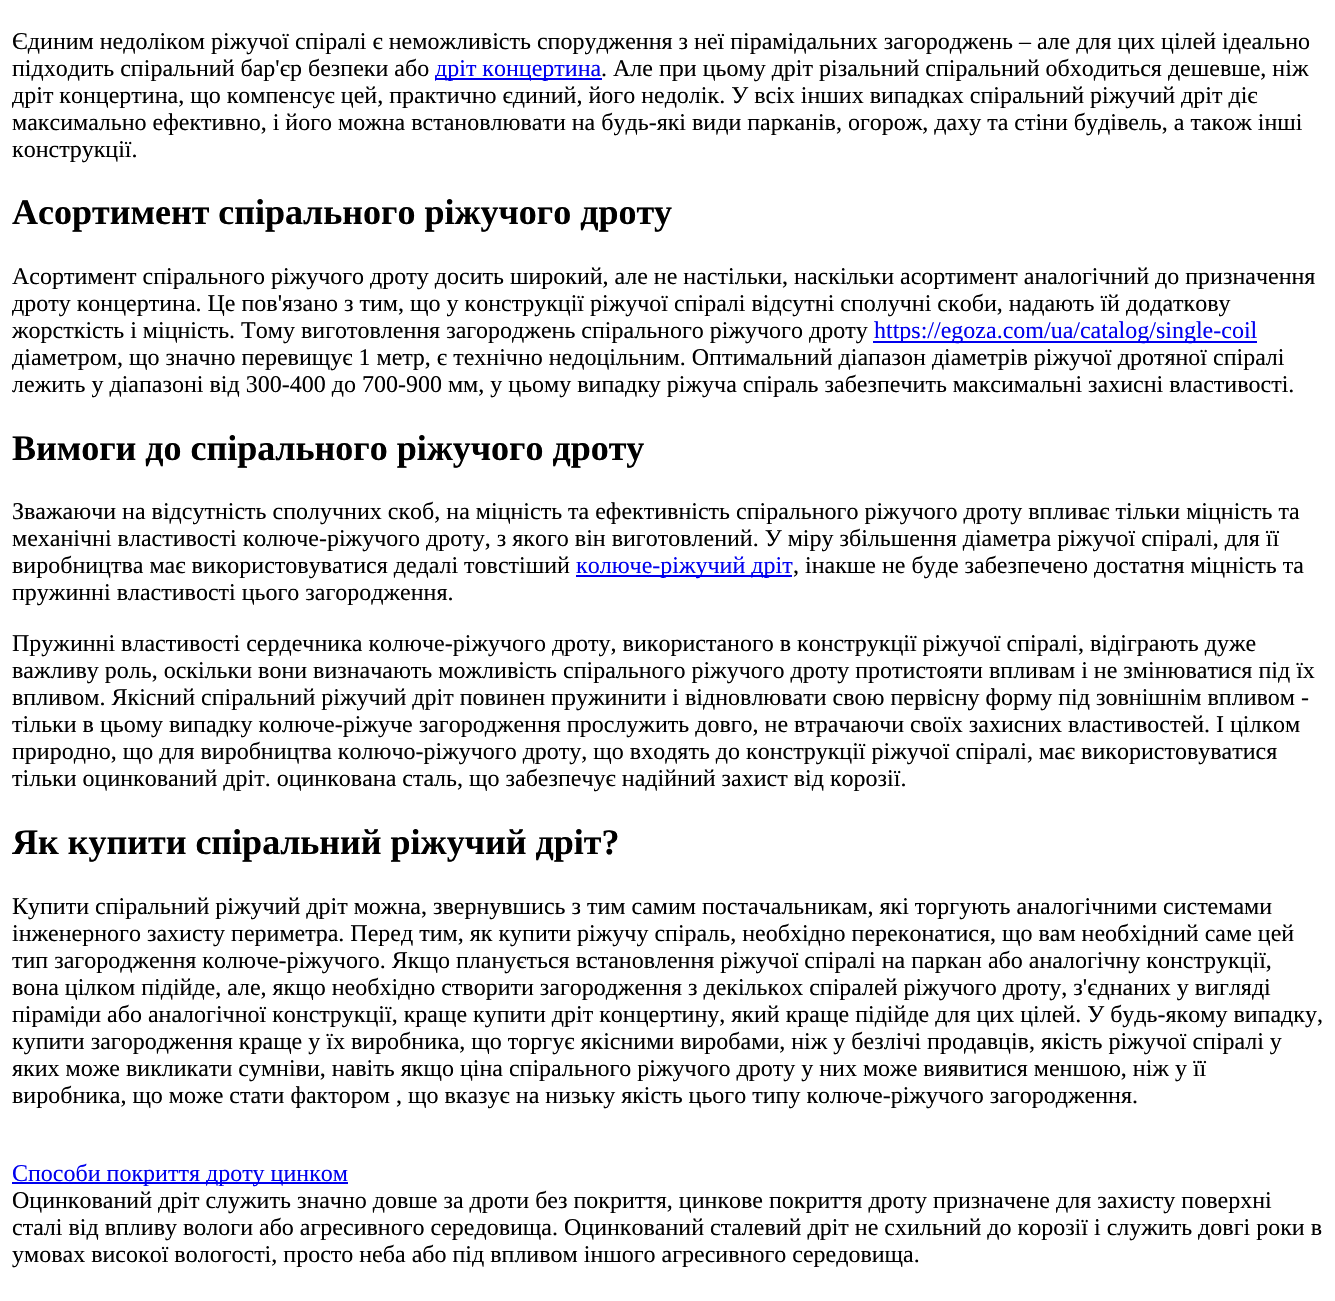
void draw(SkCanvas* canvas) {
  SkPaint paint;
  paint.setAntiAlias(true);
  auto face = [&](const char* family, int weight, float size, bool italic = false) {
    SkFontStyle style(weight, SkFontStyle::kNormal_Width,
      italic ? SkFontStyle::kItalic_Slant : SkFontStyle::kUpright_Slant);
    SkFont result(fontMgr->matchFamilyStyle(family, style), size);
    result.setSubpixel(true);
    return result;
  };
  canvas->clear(0xffffffff);
  {
    const struct { float x, y, w, h; SkColor color; } items[] = {
      {435, 78, 167, 2, 0xff0000ee},
      {873, 341, 384, 2, 0xff0000ee},
      {576, 575, 216, 2, 0xff0000ee},
      {12, 1182, 336, 2, 0xff0000ee},
    };
    for (auto [x, y, w, h, color] : items) {
      paint.setColor(color);
      canvas->drawRect(SkRect::MakeXYWH(x, y, w, h), paint);
    }
  }
  auto f0 = face("Liberation Serif", 400, 24);
  paint.setColor(0xff000000);
  canvas->drawString("Єдиним недоліком ріжучої спіралі є неможливість спорудження з неї пірамідальних загороджень – але для цих цілей ідеально", 12, 49, f0, paint);
  canvas->drawString("підходить спіральний бар'єр безпеки або", 12, 76, f0, paint);
  paint.setColor(0xff0000ee);
  canvas->drawString("дріт концертина", 435, 76, f0, paint);
  paint.setColor(0xff000000);
  {
    const struct { const char* s; float x, y; } items[] = {
      {". Але при цьому дріт різальний спіральний обходиться дешевше, ніж", 601, 76},
      {"дріт концертина, що компенсує цей, практично єдиний, його недолік. У всіх інших випадках спіральний ріжучий дріт діє", 12, 103},
      {"максимально ефективно, і його можна встановлювати на будь-які види парканів, огорож, даху та стіни будівель, а також інші", 12, 130},
      {"конструкції.", 12, 157},
    };
    for (auto [s, x, y] : items) {
      canvas->drawString(s, x, y, f0, paint);
    }
  }
  auto f1 = face("Liberation Serif", 700, 36);
  canvas->drawString("Асортимент спірального ріжучого дроту", 12, 224, f1, paint);
  {
    const struct { const char* s; float x, y; } items[] = {
      {"Асортимент спірального ріжучого дроту досить широкий, але не настільки, наскільки асортимент аналогічний до призначення", 12, 284},
      {"дроту концертина. Це пов'язано з тим, що у конструкції ріжучої спіралі відсутні сполучні скоби, надають їй додаткову", 12, 311},
      {"жорсткість і міцність. Тому виготовлення загороджень спірального ріжучого дроту", 12, 338},
    };
    for (auto [s, x, y] : items) {
      canvas->drawString(s, x, y, f0, paint);
    }
  }
  paint.setColor(0xff0000ee);
  canvas->drawString("https://egoza.com/ua/catalog/single-coil", 874, 338, f0, paint);
  paint.setColor(0xff000000);
  canvas->drawString("діаметром, що значно перевищує 1 метр, є технічно недоцільним. Оптимальний діапазон діаметрів ріжучої дротяної спіралі", 12, 365, f0, paint);
  canvas->drawString("лежить у діапазоні від 300-400 до 700-900 мм, у цьому випадку ріжуча спіраль забезпечить максимальні захисні властивості.", 12, 392, f0, paint);
  canvas->drawString("Вимоги до спірального ріжучого дроту", 12, 460, f1, paint);
  {
    const struct { const char* s; float x, y; } items[] = {
      {"Зважаючи на відсутність сполучних скоб, на міцність та ефективність спірального ріжучого дроту впливає тільки міцність та", 12, 519},
      {"механічні властивості колюче-ріжучого дроту, з якого він виготовлений. У міру збільшення діаметра ріжучої спіралі, для її", 12, 546},
      {"виробництва має використовуватися дедалі товстіший", 12, 573},
    };
    for (auto [s, x, y] : items) {
      canvas->drawString(s, x, y, f0, paint);
    }
  }
  paint.setColor(0xff0000ee);
  canvas->drawString("колюче-ріжучий дріт", 576, 573, f0, paint);
  paint.setColor(0xff000000);
  {
    const struct { const char* s; float x, y; } items[] = {
      {", інакше не буде забезпечено достатня міцність та", 793, 573},
      {"пружинні властивості цього загородження.", 12, 600},
      {"Пружинні властивості сердечника колюче-ріжучого дроту, використаного в конструкції ріжучої спіралі, відіграють дуже", 12, 651},
      {"важливу роль, оскільки вони визначають можливість спірального ріжучого дроту протистояти впливам і не змінюватися під їх", 12, 678},
      {"впливом. Якісний спіральний ріжучий дріт повинен пружинити і відновлювати свою первісну форму під зовнішнім впливом -", 12, 705},
      {"тільки в цьому випадку колюче-ріжуче загородження прослужить довго, не втрачаючи своїх захисних властивостей. І цілком", 12, 732},
      {"природно, що для виробництва колючо-ріжучого дроту, що входять до конструкції ріжучої спіралі, має використовуватися", 12, 759},
      {"тільки оцинкований дріт. оцинкована сталь, що забезпечує надійний захист від корозії.", 12, 786},
    };
    for (auto [s, x, y] : items) {
      canvas->drawString(s, x, y, f0, paint);
    }
  }
  canvas->drawString("Як купити спіральний ріжучий дріт?", 12, 854, f1, paint);
  {
    const struct { const char* s; float x, y; } items[] = {
      {"Купити спіральний ріжучий дріт можна, звернувшись з тим самим постачальникам, які торгують аналогічними системами", 12, 914},
      {"інженерного захисту периметра. Перед тим, як купити ріжучу спіраль, необхідно переконатися, що вам необхідний саме цей", 12, 941},
      {"тип загородження колюче-ріжучого. Якщо планується встановлення ріжучої спіралі на паркан або аналогічну конструкції,", 12, 968},
      {"вона цілком підійде, але, якщо необхідно створити загородження з декількох спіралей ріжучого дроту, з'єднаних у вигляді", 12, 995},
      {"піраміди або аналогічної конструкції, краще купити дріт концертину, який краще підійде для цих цілей. У будь-якому випадку,", 12, 1022},
      {"купити загородження краще у їх виробника, що торгує якісними виробами, ніж у безлічі продавців, якість ріжучої спіралі у", 12, 1049},
      {"яких може викликати сумніви, навіть якщо ціна спірального ріжучого дроту у них може виявитися меншою, ніж у її", 12, 1076},
      {"виробника, що може стати фактором , що вказує на низьку якість цього типу колюче-ріжучого загородження.", 12, 1103},
    };
    for (auto [s, x, y] : items) {
      canvas->drawString(s, x, y, f0, paint);
    }
  }
  paint.setColor(0xff0000ee);
  canvas->drawString("Способи покриття дроту цинком", 12, 1181, f0, paint);
  paint.setColor(0xff000000);
  {
    const struct { const char* s; float x, y; } items[] = {
      {"Оцинкований дріт служить значно довше за дроти без покриття, цинкове покриття дроту призначене для захисту поверхні", 12, 1208},
      {"сталі від впливу вологи або агресивного середовища. Оцинкований сталевий дріт не схильний до корозії і служить довгі роки в", 12, 1235},
      {"умовах високої вологості, просто неба або під впливом іншого агресивного середовища.", 12, 1262},
    };
    for (auto [s, x, y] : items) {
      canvas->drawString(s, x, y, f0, paint);
    }
  }
}
